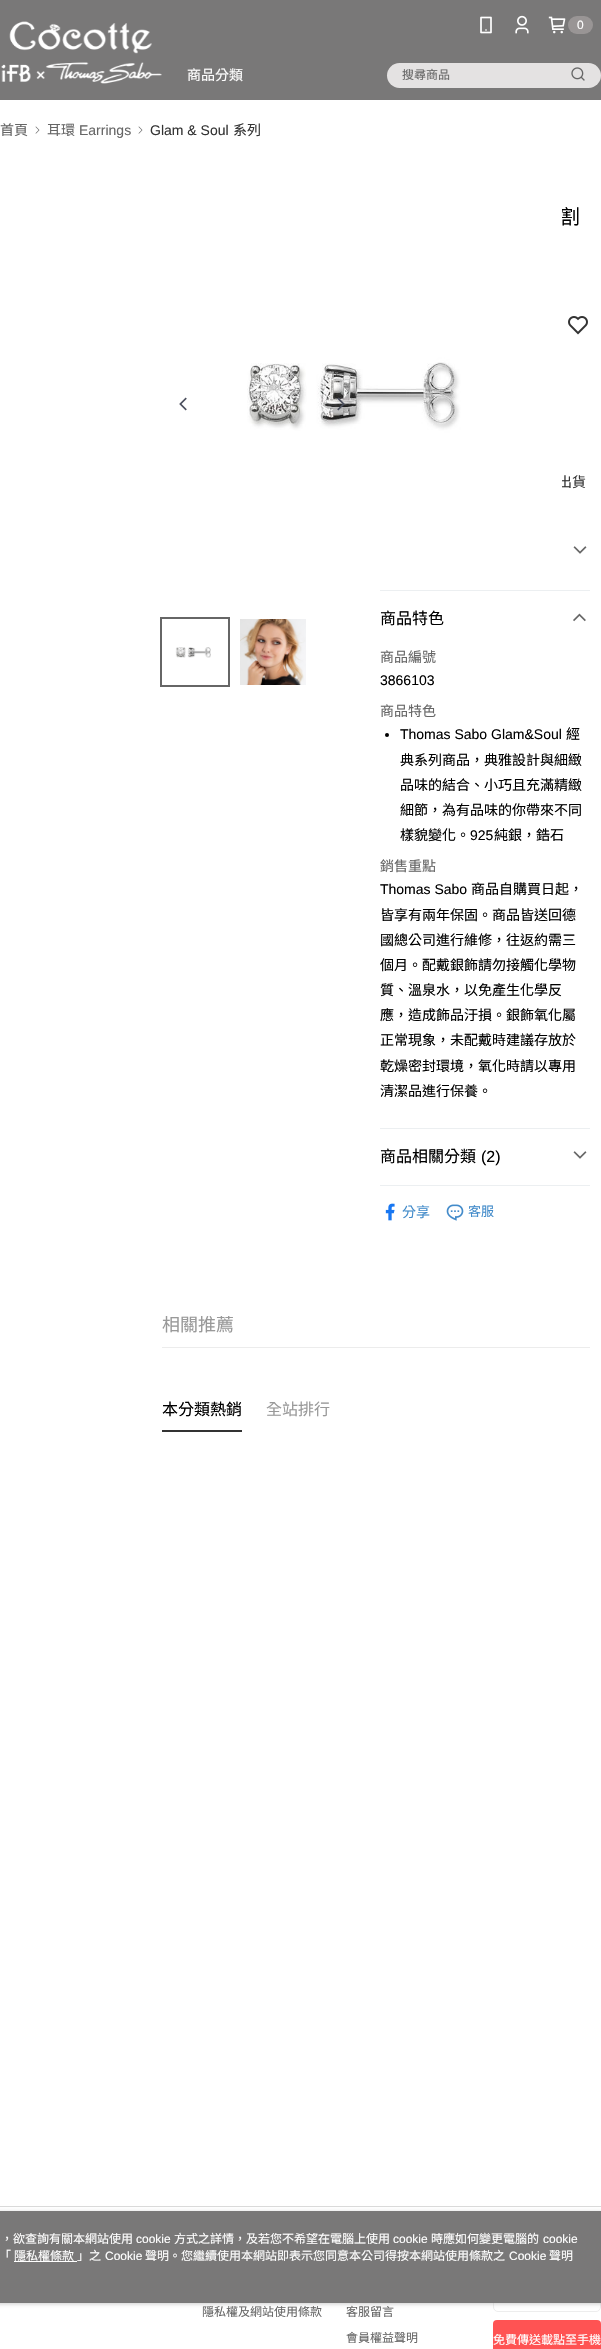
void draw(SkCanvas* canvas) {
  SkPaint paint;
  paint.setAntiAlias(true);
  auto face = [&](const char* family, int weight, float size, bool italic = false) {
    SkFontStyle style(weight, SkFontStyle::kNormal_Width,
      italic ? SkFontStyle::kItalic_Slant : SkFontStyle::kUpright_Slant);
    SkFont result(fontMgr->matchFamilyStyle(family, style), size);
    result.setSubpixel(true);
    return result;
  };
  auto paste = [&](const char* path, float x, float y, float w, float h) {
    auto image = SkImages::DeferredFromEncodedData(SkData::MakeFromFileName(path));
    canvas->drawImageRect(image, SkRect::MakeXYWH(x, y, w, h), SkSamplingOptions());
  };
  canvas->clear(0xffffffff);
  paint.setColor(0xff797878);
  canvas->drawRect(SkRect::MakeXYWH(0, 0, 601, 100), paint);
  paste("img/1.png", 1, 21, 161, 63);
  paste("img/2.png", 480, 16, 12, 18);
  paste("img/3.png", 515, 15, 14, 19);
  paste("img/4.png", 548, 16, 18, 18);
  paint.setColor(0xff999595);
  canvas->drawRoundRect(SkRect::MakeXYWH(568, 16, 25, 18), 9, 9, paint);
  paint.setColor(0xffe4e2e2);
  canvas->drawRoundRect(SkRect::MakeXYWH(387, 63, 214, 25), 12.5f, 12.5f, paint);
  paste("img/5.png", 571, 67, 14, 14);
  paste("img/6.png", 35, 126, 5, 8);
  paste("img/6.png", 138, 126, 5, 8);
  paste("img/7.png", 179, 397, 8, 14);
  paste("img/10.png", 175, 647, 36, 11);
  paint.setStroke(true);
  paint.setStrokeWidth(2);
  paint.setColor(0xff666666);
  canvas->drawRect(SkRect::MakeXYWH(161, 618, 68, 68), paint);
  paste("img/11.png", 240, 619, 66, 66);
  paste("img/12.png", 568, 316, 20, 19);
  paint.setStroke(false);
  paint.setColor(0xffeceff1);
  canvas->drawRect(SkRect::MakeXYWH(380, 590, 210, 1), paint);
  paste("img/13.png", 573, 546, 14, 8);
  canvas->drawRect(SkRect::MakeXYWH(380, 1128, 210, 1), paint);
  paste("img/14.png", 573, 613, 13, 9);
  paint.setColor(0xff000000);
  canvas->drawCircle(387, 735, 2, paint);
  paint.setColor(0xffeceff1);
  canvas->drawRect(SkRect::MakeXYWH(380, 1185, 210, 1), paint);
  paste("img/13.png", 573, 1151, 14, 8);
  paste("img/15.png", 385, 1203, 10, 18);
  paste("img/16.png", 446, 1204, 18, 17);
  {
    const struct { float x, y, w, h; SkColor color; } items[] = {
      {162, 1347, 428, 1, 0xffececec},
      {162, 1430, 80, 2, 0xff333333},
      {0, 2206, 601, 1, 0xffdadada},
    };
    for (auto [x, y, w, h, color] : items) {
      paint.setColor(color);
      canvas->drawRect(SkRect::MakeXYWH(x, y, w, h), paint);
    }
  }
  paint.setStroke(true);
  paint.setStrokeWidth(1);
  paint.setColor(0xffededed);
  canvas->drawRoundRect(SkRect::MakeXYWH(493.5f, 2272.5f, 107, 39), 4.5f, 4.5f, paint);
  paint.setStroke(false);
  paint.setColor(0xffff5353);
  canvas->drawRoundRect(SkRect::MakeXYWH(493, 2320, 108, 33), 4, 4, paint);
  paint.setColor(0x80979797);
  paint.setMaskFilter(SkMaskFilter::MakeBlur(kNormal_SkBlurStyle, 2));
  canvas->drawRoundRect(SkRect::MakeXYWH(-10, 2212, 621, 92), 4, 4, paint);
  paint.setMaskFilter(nullptr);
  paint.setColor(0xff797878);
  canvas->drawRect(SkRect::MakeXYWH(0, 2211, 601, 92), paint);
  paint.setColor(0xffffffff);
  canvas->drawRect(SkRect::MakeXYWH(14, 2261, 63, 1), paint);
  auto f0 = face("Liberation Sans", 400, 12);
  canvas->drawString("0", 577, 29, f0, paint);
  auto f1 = face("Noto Sans CJK TC", 400, 14);
  canvas->drawString("商品分類", 187, 80, f1, paint);
  auto f2 = face("Noto Sans CJK TC", 400, 12);
  paint.setColor(0xff666666);
  canvas->drawString("搜尋商品", 402, 79, f2, paint);
  canvas->drawString("首頁", 0, 135, f1, paint);
  canvas->drawString("耳環", 47, 135, f1, paint);
  auto f3 = face("Liberation Sans", 400, 14);
  canvas->drawString("Earrings", 79, 135, f3, paint);
  paint.setColor(0xff333333);
  canvas->drawString("Glam & Soul", 150, 135, f3, paint);
  canvas->drawString("系列", 233, 135, f1, paint);
  auto f4 = face("Noto Sans CJK TC", 400, 20);
  paint.setColor(0xff000000);
  canvas->drawString("割", 560, 224, f4, paint);
  paint.setColor(0xff333333);
  canvas->drawString("出貨", 558, 487, f1, paint);
  paste("img/8.png", 247, 207, 315, 366);
  paste("img/9.png", 337, 397, 8, 14);
  auto f5 = face("Noto Sans CJK TC", 400, 16);
  paint.setColor(0xff000000);
  canvas->drawString("商品特色", 380, 624, f5, paint);
  paint.setColor(0xff666666);
  canvas->drawString("商品編號", 380, 662, f1, paint);
  paint.setColor(0xff000000);
  canvas->drawString("3866103", 380, 685, f3, paint);
  paint.setColor(0xff666666);
  canvas->drawString("商品特色", 380, 716, f1, paint);
  paint.setColor(0xff000000);
  canvas->drawString("Thomas Sabo Glam&Soul", 400, 739, f3, paint);
  {
    const struct { const char* s; float x, y; } items[] = {
      {"經", 566, 739},
      {"典系列商品，典雅設計與細緻", 400, 765},
      {"品味的結合、小巧且充滿精緻", 400, 790},
      {"細節，為有品味的你帶來不同", 400, 815},
      {"樣貌變化。", 400, 840},
    };
    for (auto [s, x, y] : items) {
      canvas->drawString(s, x, y, f1, paint);
    }
  }
  canvas->drawString("925", 470, 840, f3, paint);
  canvas->drawString("純銀，鋯石", 494, 840, f1, paint);
  paint.setColor(0xff666666);
  canvas->drawString("銷售重點", 380, 871, f1, paint);
  paint.setColor(0xff000000);
  canvas->drawString("Thomas Sabo", 380, 894, f3, paint);
  {
    const struct { const char* s; float x, y; } items[] = {
      {"商品自購買日起，", 471, 894},
      {"皆享有兩年保固。商品皆送回德", 380, 920},
      {"國總公司進行維修，往返約需三", 380, 945},
      {"個月。配戴銀飾請勿接觸化學物", 380, 970},
      {"質、溫泉水，以免產生化學反", 380, 995},
      {"應，造成飾品汙損。銀飾氧化屬", 380, 1020},
      {"正常現象，未配戴時建議存放於", 380, 1045},
      {"乾燥密封環境，氧化時請以專用", 380, 1071},
      {"清潔品進行保養。", 380, 1096},
    };
    for (auto [s, x, y] : items) {
      canvas->drawString(s, x, y, f1, paint);
    }
  }
  canvas->drawString("商品相關分類", 380, 1162, f5, paint);
  auto f6 = face("Liberation Sans", 400, 16);
  canvas->drawString("(2)", 481, 1162, f6, paint);
  paint.setColor(0xff428bca);
  canvas->drawString("分享", 402, 1217, f1, paint);
  auto f7 = face("Noto Sans CJK TC", 400, 13);
  canvas->drawString("客服", 468, 1216, f7, paint);
  auto f8 = face("Noto Sans CJK TC", 400, 18);
  paint.setColor(0xff999999);
  canvas->drawString("相關推薦", 162, 1331, f8, paint);
  paint.setColor(0xff000000);
  canvas->drawString("本分類熱銷", 162, 1415, f5, paint);
  paint.setColor(0xff999999);
  canvas->drawString("全站排行", 266, 1415, f5, paint);
  paint.setColor(0xff666666);
  {
    const struct { const char* s; float x, y; } items[] = {
      {"隱私權及網站使用條款", 202, 2316},
      {"客服留言", 346, 2316},
      {"會員權益聲明", 346, 2342},
    };
    for (auto [s, x, y] : items) {
      canvas->drawString(s, x, y, f2, paint);
    }
  }
  paint.setColor(0xffffffff);
  canvas->drawString("免費傳送載點至手機", 493, 2344, f2, paint);
  canvas->drawString("，欲查詢有關本網站使用", 1, 2243, f2, paint);
  canvas->drawString("cookie", 136, 2243, f0, paint);
  canvas->drawString("方式之詳情，及若您不希望在電腦上使用", 174, 2243, f2, paint);
  canvas->drawString("cookie", 393, 2243, f0, paint);
  canvas->drawString("時應如何變更電腦的", 431, 2243, f2, paint);
  canvas->drawString("cookie", 543, 2243, f0, paint);
  {
    const struct { const char* s; float x, y; } items[] = {
      {"「", -1, 2260},
      {"隱私權條款", 14, 2260},
      {"」之", 77, 2260},
    };
    for (auto [s, x, y] : items) {
      canvas->drawString(s, x, y, f2, paint);
    }
  }
  canvas->drawString("Cookie", 105, 2260, f0, paint);
  canvas->drawString("聲明。您繼續使用本網站即表示您同意本公司得按本網站使用條款之", 145, 2260, f2, paint);
  canvas->drawString("Cookie", 509, 2260, f0, paint);
  canvas->drawString("聲明", 549, 2260, f2, paint);
}
